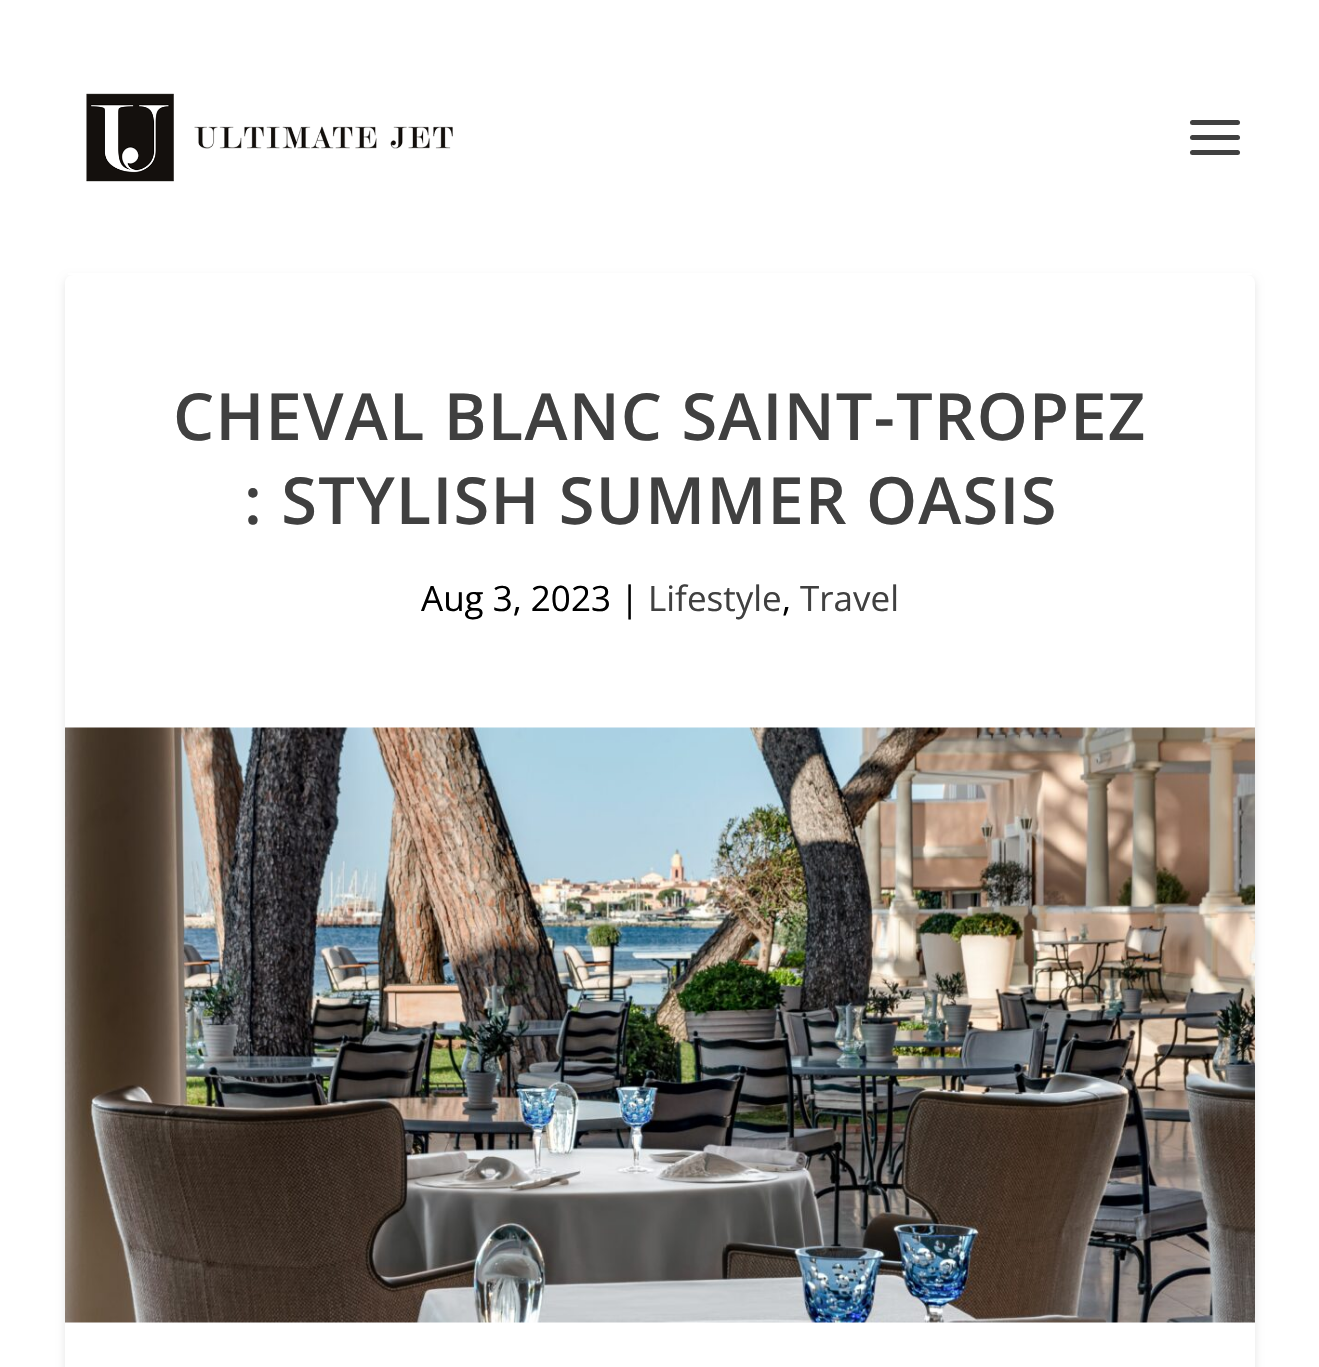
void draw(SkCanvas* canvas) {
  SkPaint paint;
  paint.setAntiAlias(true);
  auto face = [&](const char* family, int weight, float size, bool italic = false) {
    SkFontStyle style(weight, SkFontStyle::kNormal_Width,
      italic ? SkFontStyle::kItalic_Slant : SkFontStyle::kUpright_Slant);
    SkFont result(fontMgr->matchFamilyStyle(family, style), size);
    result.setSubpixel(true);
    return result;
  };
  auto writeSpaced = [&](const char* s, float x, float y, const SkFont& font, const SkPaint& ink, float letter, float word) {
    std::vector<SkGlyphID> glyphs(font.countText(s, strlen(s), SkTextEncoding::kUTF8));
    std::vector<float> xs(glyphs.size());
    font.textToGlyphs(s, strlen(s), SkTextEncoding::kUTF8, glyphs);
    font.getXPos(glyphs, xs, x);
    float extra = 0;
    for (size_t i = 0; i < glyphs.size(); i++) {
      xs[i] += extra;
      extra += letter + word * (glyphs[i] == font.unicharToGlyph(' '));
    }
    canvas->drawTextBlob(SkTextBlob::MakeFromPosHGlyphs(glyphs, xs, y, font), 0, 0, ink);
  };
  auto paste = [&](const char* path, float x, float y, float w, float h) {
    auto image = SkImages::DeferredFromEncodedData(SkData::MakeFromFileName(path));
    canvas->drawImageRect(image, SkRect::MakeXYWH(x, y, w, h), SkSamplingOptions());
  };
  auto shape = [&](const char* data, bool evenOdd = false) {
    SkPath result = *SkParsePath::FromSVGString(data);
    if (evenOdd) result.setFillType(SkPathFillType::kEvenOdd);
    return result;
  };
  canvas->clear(0xffffffff);
  canvas->save();
  canvas->clipPath(shape("M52 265H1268V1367H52ZM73 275H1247C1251.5 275 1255 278.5 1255 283V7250C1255 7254.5 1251.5 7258 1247 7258H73C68.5 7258 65 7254.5 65 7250V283C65 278.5 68.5 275 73 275Z", true), true);
  paint.setColor(0x1a000000);
  paint.setMaskFilter(SkMaskFilter::MakeBlur(kNormal_SkBlurStyle, 4));
  canvas->drawRoundRect(SkRect::MakeXYWH(65, 278, 1190, 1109), 8, 8, paint);
  paint.setMaskFilter(nullptr);
  canvas->restore();
  paint.setColor(0xffffffff);
  canvas->drawRect(SkRect::MakeXYWH(68, 273, 1184, 2), paint);
  paste("img/1.png", 86, 93, 367, 89);
  paint.setColor(0xff404040);
  canvas->drawRoundRect(SkRect::MakeXYWH(1190, 120, 50, 5), 2.5f, 2.5f, paint);
  canvas->drawRoundRect(SkRect::MakeXYWH(1190, 135, 50, 5), 2.5f, 2.5f, paint);
  canvas->drawRoundRect(SkRect::MakeXYWH(1190, 150, 50, 5), 2.5f, 2.5f, paint);
  paste("img/2.png", 65, 727, 1190, 596);
  auto f0 = face("Open Sans", 600, 65);
  writeSpaced("CHEVAL BLANC SAINT-TROPEZ", 173, 440, f0, paint, 1.25f, 0);
  writeSpaced(": STYLISH SUMMER OASIS", 244, 524, f0, paint, 1.25f, 0);
  auto f1 = face("Open Sans", 400, 35);
  paint.setColor(0xff000000);
  canvas->drawString("Aug 3, 2023 |", 421, 611, f1, paint);
  paint.setColor(0xff404040);
  canvas->drawString("Lifestyle", 648, 611, f1, paint);
  paint.setColor(0xff000000);
  canvas->drawString(",", 782, 611, f1, paint);
  paint.setColor(0xff404040);
  canvas->drawString("Travel", 800, 611, f1, paint);
}
